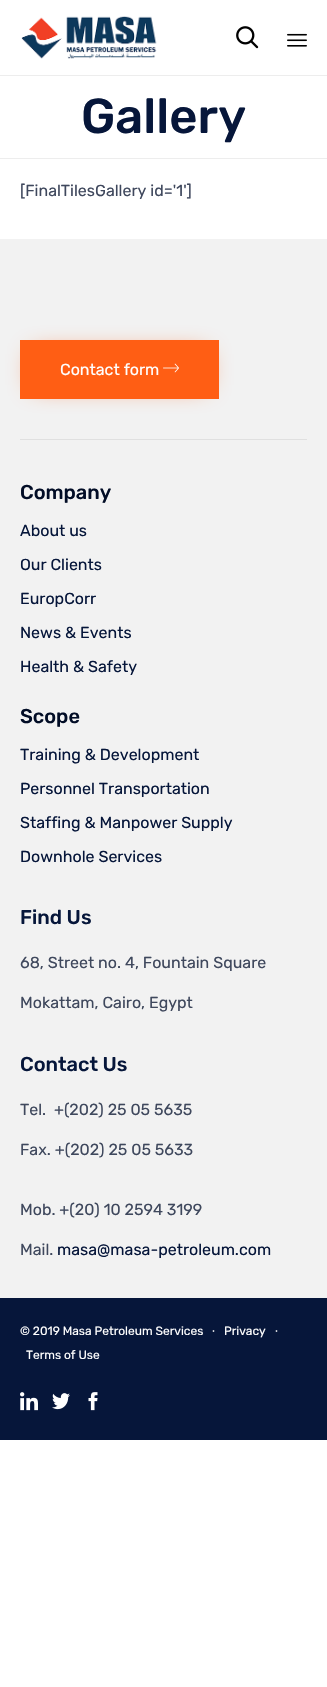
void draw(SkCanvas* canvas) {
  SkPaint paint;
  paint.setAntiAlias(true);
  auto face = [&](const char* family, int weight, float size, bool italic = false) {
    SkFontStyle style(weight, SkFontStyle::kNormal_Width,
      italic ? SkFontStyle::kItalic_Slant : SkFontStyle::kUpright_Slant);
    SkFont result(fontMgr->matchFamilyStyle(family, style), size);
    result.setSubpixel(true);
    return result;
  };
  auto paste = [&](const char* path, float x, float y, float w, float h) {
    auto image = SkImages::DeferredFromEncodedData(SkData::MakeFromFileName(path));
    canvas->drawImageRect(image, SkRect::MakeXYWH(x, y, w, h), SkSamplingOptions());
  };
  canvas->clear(0xffffffff);
  paint.setColor(0xffededed);
  canvas->drawRect(SkRect::MakeXYWH(0, 75, 327, 1), paint);
  paste("img/1.png", 21, 16, 136, 43);
  paste("img/2.png", 236, 26, 23, 23);
  paste("img/3.png", 287, 33, 20, 14);
  canvas->drawRect(SkRect::MakeXYWH(0, 158, 327, 1), paint);
  paint.setColor(0xfff2f2f2);
  canvas->drawRect(SkRect::MakeXYWH(0, 239, 327, 180), paint);
  paint.setColor(0xffff5e14);
  paint.setMaskFilter(SkMaskFilter::MakeBlur(kNormal_SkBlurStyle, 12.5f));
  canvas->drawRect(SkRect::MakeXYWH(34, 354, 171, 31), paint);
  paint.setMaskFilter(nullptr);
  canvas->drawRect(SkRect::MakeXYWH(20, 340, 199, 59), paint);
  paste("img/4.png", 163, 363, 16, 10);
  {
    const struct { float x, y, w, h; SkColor color; } items[] = {
      {0, 419, 327, 879, 0xfff2f2f2},
      {20, 439, 287, 1, 0xffe0e0e0},
      {0, 1298, 327, 142, 0xff06163a},
    };
    for (auto [x, y, w, h, color] : items) {
      paint.setColor(color);
      canvas->drawRect(SkRect::MakeXYWH(x, y, w, h), paint);
    }
  }
  paste("img/5.png", 20, 1392, 18, 19);
  paste("img/6.png", 52, 1393, 18, 17);
  paste("img/7.png", 88, 1392, 10, 19);
  auto f0 = face("Rubik", 300, 49);
  canvas->drawString("Gallery", 81, 133, f0, paint);
  auto f1 = face("Rubik", 400, 16);
  paint.setColor(0xff3f485d);
  canvas->drawString("[FinalTilesGallery id='1']", 20, 196, f1, paint);
  paint.setColor(0xffffffff);
  canvas->drawString("Contact form", 60, 375, f1, paint);
  auto f2 = face("Rubik", 300, 20);
  paint.setColor(0xff020d26);
  canvas->drawString("Company", 20, 499, f2, paint);
  paint.setColor(0xff06163a);
  {
    const struct { const char* s; float x, y; } items[] = {
      {"About us", 20, 536},
      {"Our Clients", 20, 570},
      {"EuropCorr", 20, 604},
      {"News & Events", 20, 638},
      {"Health & Safety", 20, 672},
    };
    for (auto [s, x, y] : items) {
      canvas->drawString(s, x, y, f1, paint);
    }
  }
  paint.setColor(0xff020d26);
  canvas->drawString("Scope", 20, 723, f2, paint);
  paint.setColor(0xff06163a);
  {
    const struct { const char* s; float x, y; } items[] = {
      {"Training & Development", 20, 760},
      {"Personnel Transportation", 20, 794},
      {"Staffing & Manpower Supply", 20, 828},
      {"Downhole Services", 20, 862},
    };
    for (auto [s, x, y] : items) {
      canvas->drawString(s, x, y, f1, paint);
    }
  }
  canvas->drawString("Find Us", 20, 924, f2, paint);
  paint.setColor(0xff3f485d);
  canvas->drawString("68, Street no. 4, Fountain Square", 20, 968, f1, paint);
  canvas->drawString("Mokattam, Cairo, Egypt", 20, 1008, f1, paint);
  paint.setColor(0xff06163a);
  canvas->drawString("Contact Us", 20, 1071, f2, paint);
  paint.setColor(0xff3f485d);
  {
    const struct { const char* s; float x, y; } items[] = {
      {"Tel.  +(202) 25 05 5635", 20, 1115},
      {"Fax. +(202) 25 05 5633", 20, 1155},
      {"Mob. +(20) 10 2594 3199", 20, 1215},
      {"Mail.", 20, 1255},
    };
    for (auto [s, x, y] : items) {
      canvas->drawString(s, x, y, f1, paint);
    }
  }
  paint.setColor(0xff06163a);
  canvas->drawString("masa@masa-petroleum.com", 57, 1255, f1, paint);
  auto f3 = face("Rubik", 400, 12);
  paint.setColor(0xffffffff);
  canvas->drawString("© 2019 Masa Petroleum Services", 20, 1335, f3, paint);
  auto f4 = face("Liberation Serif", 400, 12);
  canvas->drawString("∙", 212, 1335, f4, paint);
  canvas->drawString("Privacy", 224, 1335, f3, paint);
  canvas->drawString("∙", 275, 1335, f4, paint);
  canvas->drawString("Terms of Use", 26, 1359, f3, paint);
}
